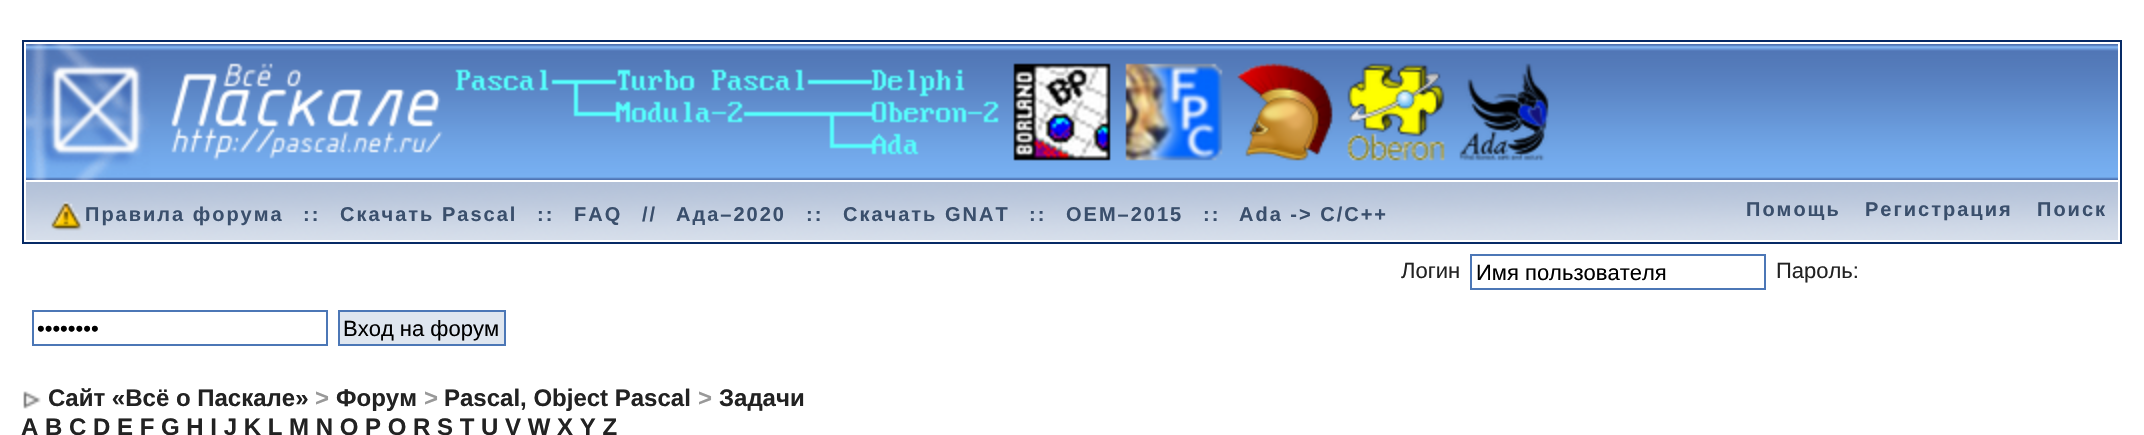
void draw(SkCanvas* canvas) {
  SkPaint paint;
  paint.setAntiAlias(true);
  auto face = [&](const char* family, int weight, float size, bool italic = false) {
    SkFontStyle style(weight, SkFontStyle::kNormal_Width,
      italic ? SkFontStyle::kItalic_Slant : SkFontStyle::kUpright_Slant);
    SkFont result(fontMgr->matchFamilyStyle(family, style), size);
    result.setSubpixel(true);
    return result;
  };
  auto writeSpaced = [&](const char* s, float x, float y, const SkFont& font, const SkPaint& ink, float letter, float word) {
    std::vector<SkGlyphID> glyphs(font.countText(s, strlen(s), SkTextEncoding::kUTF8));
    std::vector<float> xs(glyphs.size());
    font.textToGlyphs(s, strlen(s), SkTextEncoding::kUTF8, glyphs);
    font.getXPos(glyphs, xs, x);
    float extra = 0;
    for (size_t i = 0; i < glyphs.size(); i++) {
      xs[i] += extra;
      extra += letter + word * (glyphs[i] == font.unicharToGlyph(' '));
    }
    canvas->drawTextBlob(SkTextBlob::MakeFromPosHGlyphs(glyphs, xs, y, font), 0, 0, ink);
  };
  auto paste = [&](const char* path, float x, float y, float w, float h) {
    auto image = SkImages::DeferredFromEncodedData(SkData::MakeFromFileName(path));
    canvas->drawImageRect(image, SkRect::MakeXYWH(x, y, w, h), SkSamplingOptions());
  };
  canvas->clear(0xffffffff);
  paint.setStroke(true);
  paint.setStrokeWidth(2);
  paint.setColor(0xff072a66);
  canvas->drawRect(SkRect::MakeXYWH(23, 41, 2098, 202), paint);
  paste("img/1.png", 1549, 44, 569, 136);
  paste("img/2.png", 26, 44, 1523, 136);
  paste("img/3.png", 26, 182, 2092, 58);
  paste("img/4.png", 51, 201, 32, 30);
  paint.setColor(0xff4c77b6);
  canvas->drawRect(SkRect::MakeXYWH(1471, 255, 294, 34), paint);
  canvas->drawRect(SkRect::MakeXYWH(33, 311, 294, 34), paint);
  paint.setStroke(false);
  paint.setColor(0xffdfe6ef);
  canvas->drawRect(SkRect::MakeXYWH(339, 311, 166, 34), paint);
  paint.setStroke(true);
  paint.setColor(0xff4c77b6);
  canvas->drawRect(SkRect::MakeXYWH(339, 311, 166, 34), paint);
  paste("img/5.png", 23, 391, 18, 18);
  auto f0 = face("Liberation Sans", 700, 20);
  paint.setStroke(false);
  paint.setColor(0xff3a4f6c);
  {
    const struct { const char* s; float x, y; } items[] = {
      {"Правила форума", 85, 221},
      {"::", 303, 221},
      {"Скачать Pascal", 340, 221},
      {"::", 537, 221},
      {"FAQ", 574, 221},
      {"//", 642, 221},
      {"Ада–2020", 676, 221},
      {"::", 806, 221},
      {"Скачать GNAT", 843, 221},
      {"::", 1029, 221},
      {"OEM–2015", 1066, 221},
      {"::", 1203, 221},
      {"Ada -> C/C++", 1239, 221},
      {"Помощь", 1746, 216},
      {"Регистрация", 1865, 216},
      {"Поиск", 2037, 216},
    };
    for (auto [s, x, y] : items) {
      writeSpaced(s, x, y, f0, paint, 2, 0);
    }
  }
  auto f1 = face("Liberation Sans", 400, 22);
  paint.setColor(0xff222222);
  canvas->drawString("Логин", 1401, 278, f1, paint);
  paint.setColor(0xff000000);
  canvas->drawString("Имя пользователя", 1476, 280, f1, paint);
  paint.setColor(0xff222222);
  canvas->drawString("Пароль:", 1776, 278, f1, paint);
  paint.setColor(0xff000000);
  canvas->drawString("••••••••", 37, 336, f1, paint);
  canvas->drawString("Вход на форум", 343, 336, f1, paint);
  auto f2 = face("Liberation Sans", 700, 24);
  paint.setColor(0xff222222);
  canvas->drawString("Сайт «Всё о Паскале»", 48, 406, f2, paint);
  paint.setColor(0xff999999);
  canvas->drawString(">", 315, 406, f2, paint);
  paint.setColor(0xff222222);
  canvas->drawString("Форум", 336, 406, f2, paint);
  paint.setColor(0xff999999);
  canvas->drawString(">", 424, 406, f2, paint);
  paint.setColor(0xff222222);
  canvas->drawString("Pascal, Object Pascal", 444, 406, f2, paint);
  paint.setColor(0xff999999);
  canvas->drawString(">", 698, 406, f2, paint);
  paint.setColor(0xff222222);
  canvas->drawString("Задачи", 719, 406, f2, paint);
  canvas->drawString("A B C D E F G H I J K L M N O P Q R S T U V W X Y Z", 21, 435, f2, paint);
}
